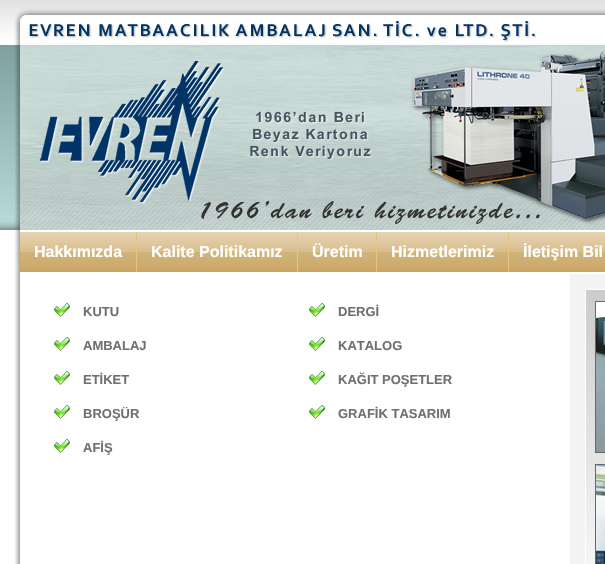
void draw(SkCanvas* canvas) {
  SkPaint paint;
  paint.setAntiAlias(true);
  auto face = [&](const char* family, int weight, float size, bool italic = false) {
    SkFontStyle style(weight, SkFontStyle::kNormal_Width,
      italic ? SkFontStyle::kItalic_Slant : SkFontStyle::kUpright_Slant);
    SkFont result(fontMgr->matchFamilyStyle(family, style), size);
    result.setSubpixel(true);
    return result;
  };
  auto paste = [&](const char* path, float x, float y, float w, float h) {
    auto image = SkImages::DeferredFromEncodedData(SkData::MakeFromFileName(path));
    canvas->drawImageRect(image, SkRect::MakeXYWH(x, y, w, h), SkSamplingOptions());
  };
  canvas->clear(0xffffffff);
  paste("img/1.png", 0, 0, 605, 230);
  paste("img/2.png", 14, 230, 591, 334);
  paint.setColor(0xffc9a664);
  canvas->drawRect(SkRect::MakeXYWH(20, 270, 585, 2), paint);
  paste("img/3.png", 20, 232, 585, 38);
  {
    const struct { float x, y, w, h; SkColor color; } items[] = {
      {570, 230, 35, 2, 0xffffffff},
      {570, 272, 35, 2, 0xffffffff},
      {136, 232, 1, 40, 0xffe7c482},
      {297, 232, 1, 40, 0xffe7c482},
      {376, 232, 1, 40, 0xffe7c482},
      {508, 232, 1, 40, 0xffe7c482},
    };
    for (auto [x, y, w, h, color] : items) {
      paint.setColor(color);
      canvas->drawRect(SkRect::MakeXYWH(x, y, w, h), paint);
    }
  }
  paste("img/4.png", 54, 303, 16, 14);
  paste("img/4.png", 54, 337, 16, 14);
  paste("img/4.png", 54, 371, 16, 14);
  paste("img/4.png", 54, 405, 16, 14);
  paste("img/4.png", 54, 439, 16, 14);
  paste("img/4.png", 309, 303, 16, 14);
  paste("img/4.png", 309, 337, 16, 14);
  paste("img/4.png", 309, 371, 16, 14);
  paste("img/4.png", 309, 405, 16, 14);
  paste("img/5.png", 585, 289, 20, 275);
  auto f0 = face("Liberation Sans", 700, 16);
  paint.setColor(0xffffffff);
  {
    const struct { const char* s; float x, y; } items[] = {
      {"Hakkımızda", 34, 257},
      {"Kalite Politikamız", 151, 257},
      {"Üretim", 312, 257},
      {"Hizmetlerimiz", 391, 257},
      {"İletişim Bil", 523, 257},
    };
    for (auto [s, x, y] : items) {
      canvas->drawString(s, x, y, f0, paint);
    }
  }
  auto f1 = face("Liberation Sans", 700, 13);
  paint.setColor(0xff707070);
  {
    const struct { const char* s; float x, y; } items[] = {
      {"KUTU", 83, 316},
      {"AMBALAJ", 83, 350},
      {"ETİKET", 83, 384},
      {"BROŞÜR", 83, 418},
      {"AFİŞ", 83, 452},
      {"DERGİ", 338, 316},
      {"KATALOG", 338, 350},
      {"KAĞIT POŞETLER", 338, 384},
      {"GRAFİK TASARIM", 338, 418},
    };
    for (auto [s, x, y] : items) {
      canvas->drawString(s, x, y, f1, paint);
    }
  }
}
